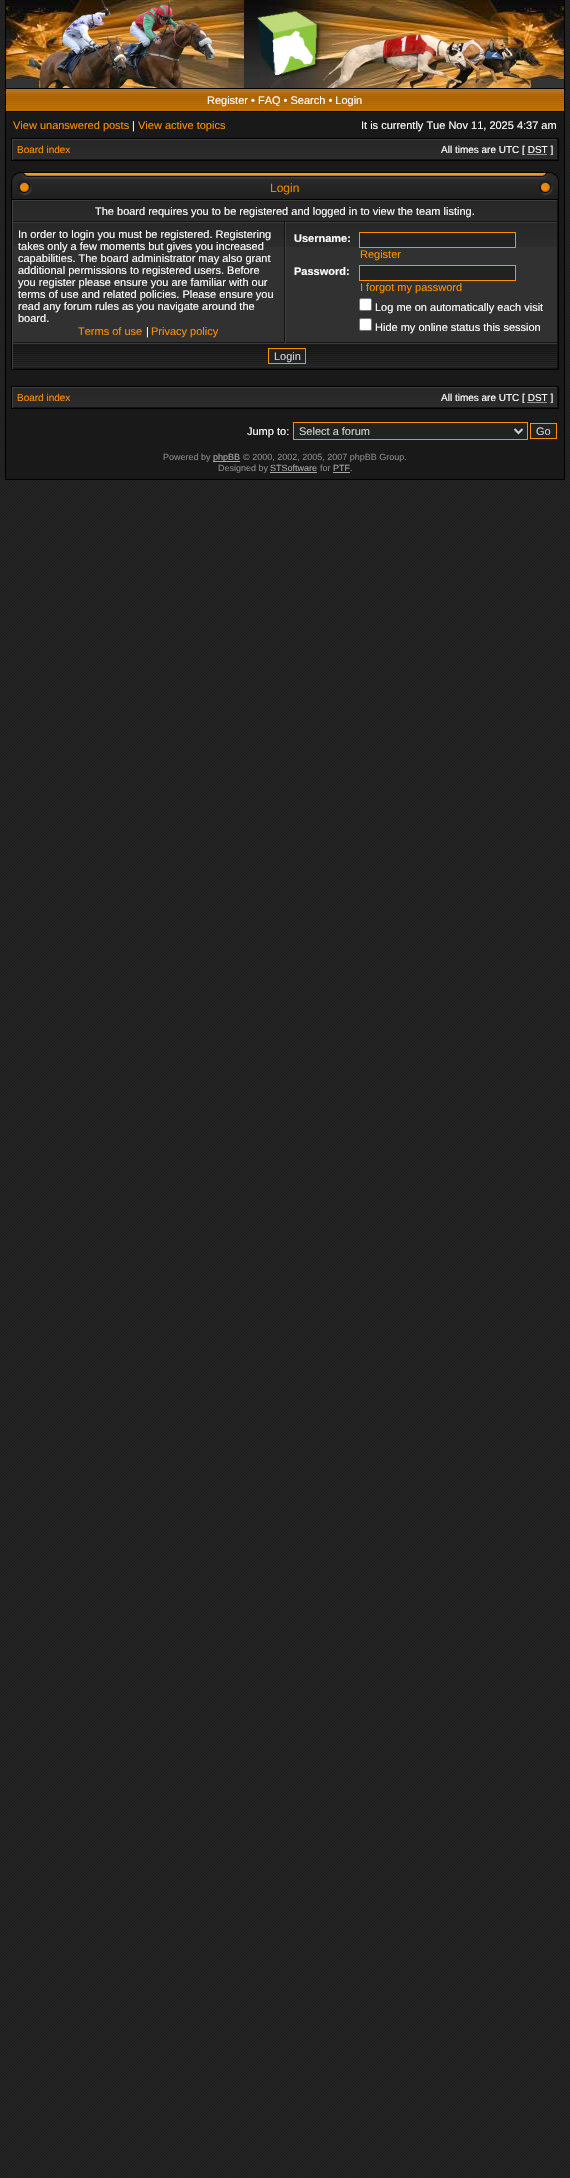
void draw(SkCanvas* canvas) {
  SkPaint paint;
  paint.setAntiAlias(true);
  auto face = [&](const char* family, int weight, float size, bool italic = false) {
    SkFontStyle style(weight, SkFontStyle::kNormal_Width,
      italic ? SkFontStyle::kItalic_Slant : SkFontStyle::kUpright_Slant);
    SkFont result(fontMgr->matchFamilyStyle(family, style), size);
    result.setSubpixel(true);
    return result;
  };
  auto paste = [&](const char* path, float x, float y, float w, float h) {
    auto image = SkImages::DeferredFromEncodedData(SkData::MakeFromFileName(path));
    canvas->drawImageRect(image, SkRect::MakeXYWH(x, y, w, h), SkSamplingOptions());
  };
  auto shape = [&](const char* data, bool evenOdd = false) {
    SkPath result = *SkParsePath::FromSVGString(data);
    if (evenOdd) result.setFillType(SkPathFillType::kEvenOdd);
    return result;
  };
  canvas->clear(0xffffffff);
  paste("img/1.png", 0, 0, 570, 2178);
  {
    const struct { float x, y, w, h; SkColor color; } items[] = {
      {564, 0, 1, 480, 0xff000000},
      {5, 479, 560, 1, 0xff000000},
      {5, 0, 1, 480, 0xff000000},
    };
    for (auto [x, y, w, h, color] : items) {
      paint.setColor(color);
      canvas->drawRect(SkRect::MakeXYWH(x, y, w, h), paint);
    }
  }
  paste("img/2.png", 6, 0, 238, 88);
  paste("img/3.png", 244, 0, 320, 88);
  paste("img/4.png", 29, 0, 510, 88);
  paste("img/5.png", 6, 89, 558, 22);
  {
    const struct { float x, y, w, h; SkColor color; } items[] = {
      {6, 88, 558, 1, 0xff000000},
      {6, 111, 558, 1, 0xff000000},
      {6, 112, 558, 367, 0xff191919},
    };
    for (auto [x, y, w, h, color] : items) {
      paint.setColor(color);
      canvas->drawRect(SkRect::MakeXYWH(x, y, w, h), paint);
    }
  }
  paint.setStroke(true);
  paint.setStrokeWidth(1);
  paint.setColor(0xff000000);
  canvas->drawRect(SkRect::MakeXYWH(11.5f, 138.5f, 547, 22), paint);
  paste("img/6.png", 13, 140, 544, 19);
  paint.setStroke(false);
  {
    const struct { float x, y, w, h; SkColor color; } items[] = {
      {12, 139, 546, 1, 0xff3c3c3c},
      {557, 139, 1, 21, 0xff121212},
      {12, 159, 546, 1, 0xff131313},
      {12, 139, 1, 21, 0xff404040},
    };
    for (auto [x, y, w, h, color] : items) {
      paint.setColor(color);
      canvas->drawRect(SkRect::MakeXYWH(x, y, w, h), paint);
    }
  }
  paint.setStroke(true);
  paint.setColor(0xffffffff);
  paint.setPathEffect(SkDashPathEffect::Make({{1, 1}}, 0));
  canvas->drawPath(shape("M527.5 154.5H547.5"), paint);
  paint.setPathEffect(nullptr);
  paste("img/7.png", 32, 172, 507, 27);
  paste("img/8.png", 11, 172, 21, 27);
  paste("img/9.png", 539, 172, 20, 27);
  paint.setColor(0xff000000);
  canvas->drawRect(SkRect::MakeXYWH(11.5f, 199.5f, 547, 170), paint);
  paste("img/10.png", 13, 201, 544, 20);
  paint.setStroke(false);
  {
    const struct { float x, y, w, h; SkColor color; } items[] = {
      {12, 200, 546, 1, 0xff3c3c3c},
      {557, 200, 1, 22, 0xff121212},
      {12, 221, 546, 1, 0xff131313},
      {12, 200, 1, 22, 0xff404040},
      {13, 247, 271, 95, 0xff313131},
    };
    for (auto [x, y, w, h, color] : items) {
      paint.setColor(color);
      canvas->drawRect(SkRect::MakeXYWH(x, y, w, h), paint);
    }
  }
  paste("img/11.png", 13, 223, 271, 24);
  {
    const struct { float x, y, w, h; SkColor color; } items[] = {
      {12, 222, 546, 1, 0xff3c3c3c},
      {284, 222, 1, 121, 0xff121212},
      {12, 342, 273, 1, 0xff131313},
      {12, 222, 1, 121, 0xff404040},
      {286, 247, 271, 95, 0xff313131},
    };
    for (auto [x, y, w, h, color] : items) {
      paint.setColor(color);
      canvas->drawRect(SkRect::MakeXYWH(x, y, w, h), paint);
    }
  }
  paste("img/11.png", 286, 223, 271, 24);
  {
    const struct { float x, y, w, h; SkColor color; } items[] = {
      {557, 222, 1, 121, 0xff121212},
      {285, 342, 273, 1, 0xff131313},
      {285, 222, 1, 121, 0xff404040},
    };
    for (auto [x, y, w, h, color] : items) {
      paint.setColor(color);
      canvas->drawRect(SkRect::MakeXYWH(x, y, w, h), paint);
    }
  }
  paint.setColor(0xff222222);
  canvas->drawRect(SkRect::MakeXYWH(359.5f, 232.5f, 156, 15), paint);
  paint.setStroke(true);
  paint.setColor(0xffff9000);
  canvas->drawRect(SkRect::MakeXYWH(359.5f, 232.5f, 156, 15), paint);
  paint.setStroke(false);
  paint.setColor(0xff222222);
  canvas->drawRect(SkRect::MakeXYWH(359.5f, 265.5f, 156, 15), paint);
  paint.setStroke(true);
  paint.setColor(0xffff9000);
  canvas->drawRect(SkRect::MakeXYWH(359.5f, 265.5f, 156, 15), paint);
  paint.setStroke(false);
  paint.setColor(0xffffffff);
  canvas->drawRoundRect(SkRect::MakeXYWH(359.5f, 298.5f, 12, 12), 1.5f, 1.5f, paint);
  paint.setStroke(true);
  paint.setColor(0xff767676);
  canvas->drawRoundRect(SkRect::MakeXYWH(359.5f, 298.5f, 12, 12), 1.5f, 1.5f, paint);
  paint.setStroke(false);
  paint.setColor(0xffffffff);
  canvas->drawRoundRect(SkRect::MakeXYWH(359.5f, 318.5f, 12, 12), 1.5f, 1.5f, paint);
  paint.setStroke(true);
  paint.setColor(0xff767676);
  canvas->drawRoundRect(SkRect::MakeXYWH(359.5f, 318.5f, 12, 12), 1.5f, 1.5f, paint);
  paste("img/12.png", 13, 344, 544, 24);
  paint.setStroke(false);
  {
    const struct { float x, y, w, h; SkColor color; } items[] = {
      {12, 343, 546, 1, 0xff3c3c3c},
      {557, 343, 1, 26, 0xff121212},
      {12, 368, 546, 1, 0xff131313},
      {12, 343, 1, 26, 0xff404040},
    };
    for (auto [x, y, w, h, color] : items) {
      paint.setColor(color);
      canvas->drawRect(SkRect::MakeXYWH(x, y, w, h), paint);
    }
  }
  paint.setColor(0xff222222);
  canvas->drawRect(SkRect::MakeXYWH(268.5f, 348.5f, 37, 15), paint);
  paint.setStroke(true);
  paint.setColor(0xffff9000);
  canvas->drawRect(SkRect::MakeXYWH(268.5f, 348.5f, 37, 15), paint);
  paint.setColor(0xff000000);
  canvas->drawRect(SkRect::MakeXYWH(11.5f, 386.5f, 547, 22), paint);
  paste("img/6.png", 13, 388, 544, 19);
  paint.setStroke(false);
  {
    const struct { float x, y, w, h; SkColor color; } items[] = {
      {12, 387, 546, 1, 0xff3c3c3c},
      {557, 387, 1, 21, 0xff121212},
      {12, 407, 546, 1, 0xff131313},
      {12, 387, 1, 21, 0xff404040},
    };
    for (auto [x, y, w, h, color] : items) {
      paint.setColor(color);
      canvas->drawRect(SkRect::MakeXYWH(x, y, w, h), paint);
    }
  }
  paint.setStroke(true);
  paint.setColor(0xffffffff);
  paint.setPathEffect(SkDashPathEffect::Make({{1, 1}}, 0));
  canvas->drawPath(shape("M527.5 402.5H547.5"), paint);
  paint.setPathEffect(nullptr);
  paint.setStroke(false);
  paint.setColor(0xff222222);
  canvas->drawRect(SkRect::MakeXYWH(293.5f, 422.5f, 234, 17), paint);
  paint.setStroke(true);
  paint.setColor(0xffff9000);
  canvas->drawRect(SkRect::MakeXYWH(293.5f, 422.5f, 234, 17), paint);
  paint.setStrokeWidth(2);
  paint.setColor(0xffd0d0d0);
  canvas->drawPath(shape("M514.5 429L518.5 433L522.5 429"), paint);
  paint.setStroke(false);
  paint.setColor(0xff222222);
  canvas->drawRect(SkRect::MakeXYWH(530.5f, 423.5f, 26, 15), paint);
  paint.setStroke(true);
  paint.setStrokeWidth(1);
  paint.setColor(0xffff9000);
  canvas->drawRect(SkRect::MakeXYWH(530.5f, 423.5f, 26, 15), paint);
  paint.setStroke(false);
  {
    const struct { float x, y, w, h; SkColor color; } items[] = {
      {213, 461, 27, 1, 0xffaaaaaa},
      {270, 472, 47, 1, 0xffaaaaaa},
      {333, 472, 17, 1, 0xffaaaaaa},
    };
    for (auto [x, y, w, h, color] : items) {
      paint.setColor(color);
      canvas->drawRect(SkRect::MakeXYWH(x, y, w, h), paint);
    }
  }
  auto f0 = face("Liberation Sans", 400, 11);
  paint.setColor(0xffffffff);
  canvas->drawString("Register • FAQ • Search • Login", 207, 104, f0, paint);
  paint.setColor(0xffff9000);
  canvas->drawString("View unanswered posts", 13, 129, f0, paint);
  paint.setColor(0xffffffff);
  canvas->drawString("|", 132, 129, f0, paint);
  paint.setColor(0xffff9000);
  canvas->drawString("View active topics", 138, 129, f0, paint);
  paint.setColor(0xffffffff);
  canvas->drawString("It is currently Tue Nov 11, 2025 4:37 am", 361, 129, f0, paint);
  auto f1 = face("Liberation Sans", 400, 10);
  paint.setColor(0xffff9000);
  canvas->drawString("Board index", 17, 153, f1, paint);
  paint.setColor(0xffffffff);
  canvas->drawString("All times are UTC [ DST ]", 441, 153, f1, paint);
  auto f2 = face("Liberation Sans", 400, 12);
  paint.setColor(0xffeb8500);
  canvas->drawString("Login", 270, 192, f2, paint);
  paint.setColor(0xffffffff);
  {
    const struct { const char* s; float x, y; } items[] = {
      {"The board requires you to be registered and logged in to view the team listing.", 95, 215},
      {"In order to login you must be registered. Registering", 18, 238},
      {"takes only a few moments but gives you increased", 18, 250},
      {"capabilities. The board administrator may also grant", 18, 262},
      {"additional permissions to registered users. Before", 18, 274},
      {"you register please ensure you are familiar with our", 18, 286},
      {"terms of use and related policies. Please ensure you", 18, 298},
      {"read any forum rules as you navigate around the", 18, 310},
      {"board.", 18, 322},
    };
    for (auto [s, x, y] : items) {
      canvas->drawString(s, x, y, f0, paint);
    }
  }
  paint.setColor(0xffff9000);
  canvas->drawString("Terms of use", 78, 335, f0, paint);
  paint.setColor(0xffffffff);
  canvas->drawString("|", 146, 335, f0, paint);
  paint.setColor(0xffff9000);
  canvas->drawString("Privacy policy", 151, 335, f0, paint);
  auto f3 = face("Liberation Sans", 700, 11);
  paint.setColor(0xffffffff);
  canvas->drawString("Username:", 294, 242, f3, paint);
  paint.setColor(0xffff9000);
  canvas->drawString("Register", 360, 258, f0, paint);
  paint.setColor(0xffffffff);
  canvas->drawString("Password:", 294, 275, f3, paint);
  paint.setColor(0xffff9000);
  canvas->drawString("I forgot my password", 360, 291, f0, paint);
  paint.setColor(0xffffffff);
  canvas->drawString("Log me on automatically each visit", 375, 311, f0, paint);
  canvas->drawString("Hide my online status this session", 375, 331, f0, paint);
  paint.setColor(0xffd0d0d0);
  canvas->drawString("Login", 274, 360, f0, paint);
  paint.setColor(0xffff9000);
  canvas->drawString("Board index", 17, 401, f1, paint);
  paint.setColor(0xffffffff);
  canvas->drawString("All times are UTC [ DST ]", 441, 401, f1, paint);
  canvas->drawString("Jump to:", 247, 435, f0, paint);
  paint.setColor(0xffd0d0d0);
  canvas->drawString("Select a forum", 299, 435, f0, paint);
  canvas->drawString("Go", 536, 435, f0, paint);
  auto f4 = face("Liberation Sans", 400, 9);
  paint.setColor(0xff888888);
  canvas->drawString("Powered by", 163, 460, f4, paint);
  paint.setColor(0xffaaaaaa);
  canvas->drawString("phpBB", 213, 460, f4, paint);
  paint.setColor(0xff888888);
  canvas->drawString("© 2000, 2002, 2005, 2007 phpBB Group.", 243, 460, f4, paint);
  canvas->drawString("Designed by", 218, 471, f4, paint);
  paint.setColor(0xffaaaaaa);
  canvas->drawString("STSoftware", 270, 471, f4, paint);
  paint.setColor(0xff888888);
  canvas->drawString("for", 320, 471, f4, paint);
  paint.setColor(0xffaaaaaa);
  canvas->drawString("PTF", 333, 471, f4, paint);
  paint.setColor(0xff888888);
  canvas->drawString(".", 350, 471, f4, paint);
}
